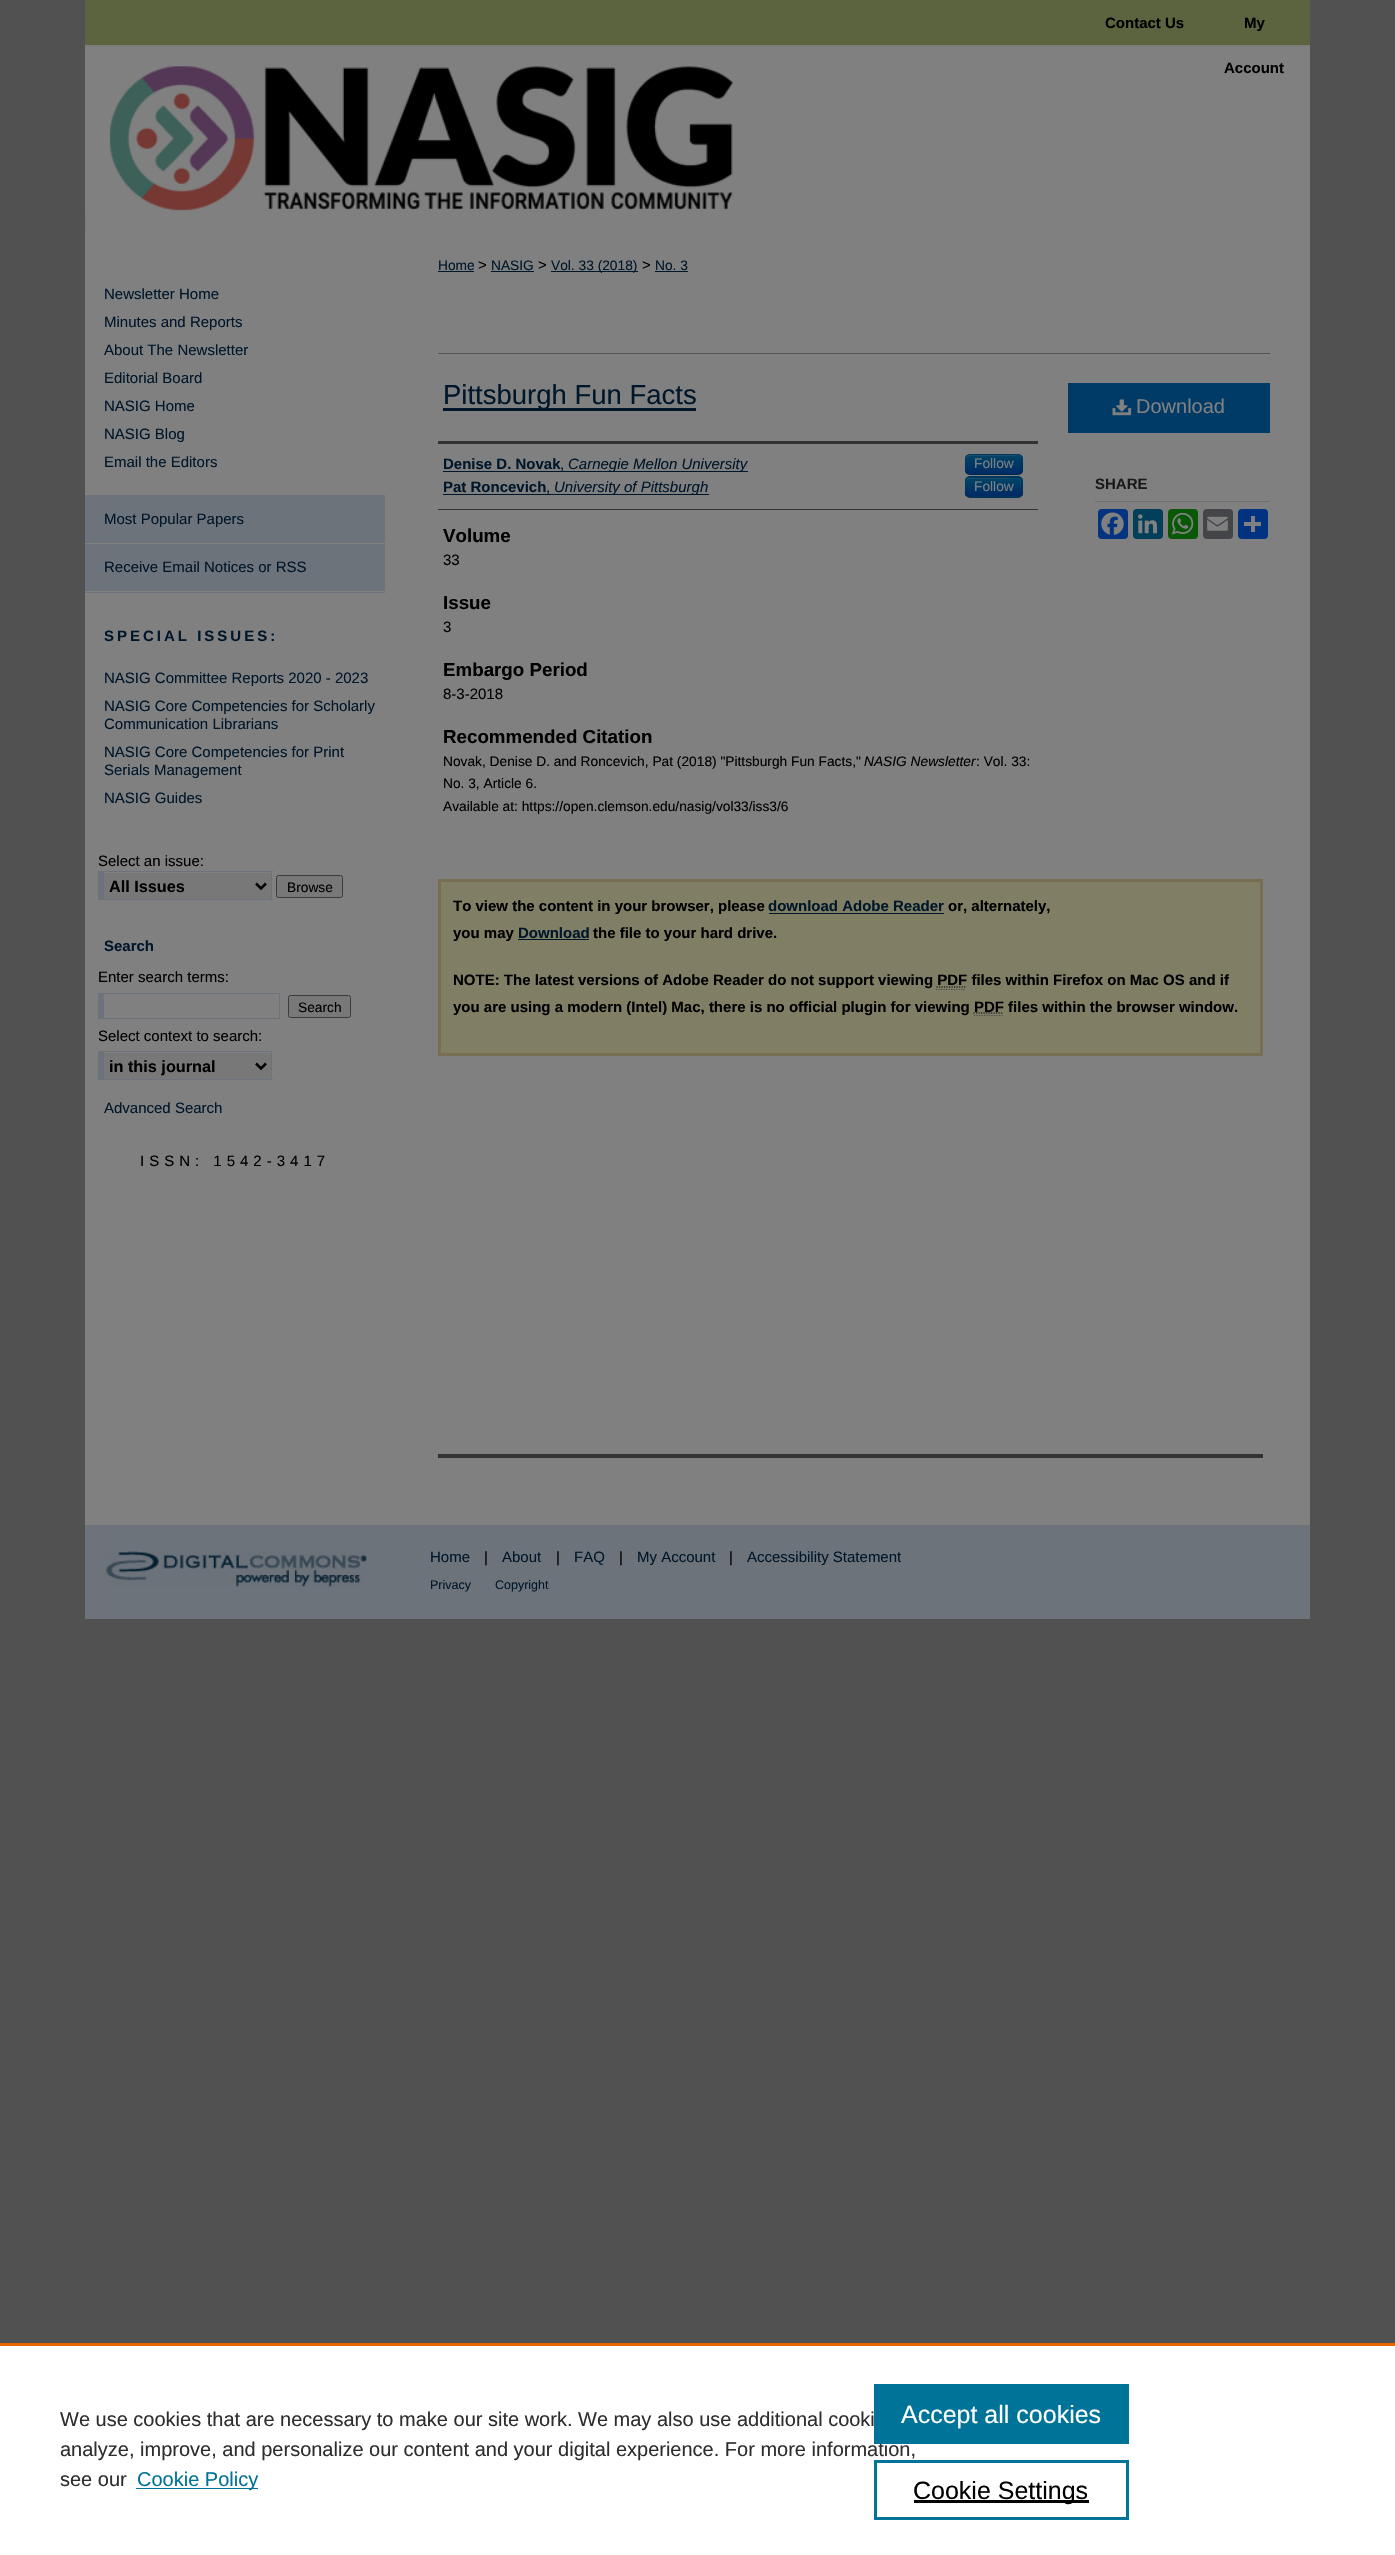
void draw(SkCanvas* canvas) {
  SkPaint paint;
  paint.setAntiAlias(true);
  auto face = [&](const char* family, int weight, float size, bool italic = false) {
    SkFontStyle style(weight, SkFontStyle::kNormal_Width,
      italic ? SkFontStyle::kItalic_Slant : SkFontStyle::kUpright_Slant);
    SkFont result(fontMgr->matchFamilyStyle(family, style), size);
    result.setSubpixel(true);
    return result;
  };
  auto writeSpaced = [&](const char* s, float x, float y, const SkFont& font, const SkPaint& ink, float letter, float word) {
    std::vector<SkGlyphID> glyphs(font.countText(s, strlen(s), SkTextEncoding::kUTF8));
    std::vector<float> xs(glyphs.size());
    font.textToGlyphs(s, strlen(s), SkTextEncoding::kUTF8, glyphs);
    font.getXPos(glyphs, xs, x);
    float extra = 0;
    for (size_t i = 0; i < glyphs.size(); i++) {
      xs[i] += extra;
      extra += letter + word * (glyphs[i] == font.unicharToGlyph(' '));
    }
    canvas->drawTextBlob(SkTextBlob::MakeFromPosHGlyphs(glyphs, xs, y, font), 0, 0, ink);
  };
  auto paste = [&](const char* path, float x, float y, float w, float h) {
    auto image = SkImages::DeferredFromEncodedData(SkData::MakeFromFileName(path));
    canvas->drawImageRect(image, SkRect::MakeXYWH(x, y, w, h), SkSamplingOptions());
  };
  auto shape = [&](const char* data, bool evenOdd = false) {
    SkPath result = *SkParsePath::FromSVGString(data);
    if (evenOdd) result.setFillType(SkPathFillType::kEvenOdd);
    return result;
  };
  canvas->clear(0xff515151);
  paint.setColor(0xff5b643e);
  canvas->drawRect(SkRect::MakeXYWH(85, 0, 1225, 45), paint);
  paint.setColor(0xff808080);
  canvas->drawRect(SkRect::MakeXYWH(85, 232, 1225, 1293), paint);
  paste("img/1.png", 85, 45, 1225, 187);
  {
    const struct { float x, y, w, h; SkColor color; } items[] = {
      {85, 495, 300, 48, 0xff6d737a},
      {85, 544, 300, 49, 0xff6d737a},
      {85, 591, 300, 1, 0xff808080},
      {104, 873, 167, 26, 0xff787878},
      {98, 871, 175, 1, 0xff6d737a},
      {271, 871, 1, 29, 0xff6d737a},
      {98, 899, 175, 1, 0xff6d737a},
      {98, 871, 6, 29, 0xff6d737a},
    };
    for (auto [x, y, w, h, color] : items) {
      paint.setColor(color);
      canvas->drawRect(SkRect::MakeXYWH(x, y, w, h), paint);
    }
  }
  paint.setStroke(true);
  paint.setStrokeWidth(2.5f);
  paint.setColor(0xff000000);
  canvas->drawPath(shape("M256 883.5L261 888.5L266 883.5"), paint);
  paint.setStroke(false);
  paint.setColor(0xff787878);
  canvas->drawRoundRect(SkRect::MakeXYWH(276.5f, 875.5f, 66, 22), 2, 2, paint);
  paint.setStroke(true);
  paint.setStrokeWidth(1);
  paint.setColor(0xff3b3b3b);
  canvas->drawRoundRect(SkRect::MakeXYWH(276.5f, 875.5f, 66, 22), 2, 2, paint);
  paint.setStroke(false);
  {
    const struct { float x, y, w, h; SkColor color; } items[] = {
      {98, 993, 182, 1, 0xff6d737a},
      {279, 993, 1, 26, 0xff6d737a},
      {98, 1018, 182, 1, 0xff6d737a},
      {98, 993, 6, 26, 0xff6d737a},
    };
    for (auto [x, y, w, h, color] : items) {
      paint.setColor(color);
      canvas->drawRect(SkRect::MakeXYWH(x, y, w, h), paint);
    }
  }
  paint.setColor(0xff787878);
  canvas->drawRoundRect(SkRect::MakeXYWH(288.5f, 995.5f, 62, 22), 2, 2, paint);
  paint.setStroke(true);
  paint.setColor(0xff3b3b3b);
  canvas->drawRoundRect(SkRect::MakeXYWH(288.5f, 995.5f, 62, 22), 2, 2, paint);
  paint.setStroke(false);
  {
    const struct { float x, y, w, h; SkColor color; } items[] = {
      {104, 1053, 167, 26, 0xff787878},
      {98, 1051, 175, 1, 0xff6d737a},
      {271, 1051, 1, 29, 0xff6d737a},
      {98, 1079, 175, 1, 0xff6d737a},
      {98, 1051, 6, 29, 0xff6d737a},
    };
    for (auto [x, y, w, h, color] : items) {
      paint.setColor(color);
      canvas->drawRect(SkRect::MakeXYWH(x, y, w, h), paint);
    }
  }
  paint.setStroke(true);
  paint.setStrokeWidth(2.5f);
  paint.setColor(0xff000000);
  canvas->drawPath(shape("M256 1063.5L261 1068.5L266 1063.5"), paint);
  paint.setStroke(false);
  {
    const struct { float x, y, w, h; SkColor color; } items[] = {
      {438, 271, 36, 1, 0xff00162a},
      {491, 271, 43, 1, 0xff00162a},
      {551, 271, 87, 1, 0xff00162a},
      {655, 271, 33, 1, 0xff00162a},
      {438, 353, 832, 1, 0xff555555},
      {443, 408, 253, 3, 0xff00162a},
      {438, 441, 600, 3, 0xff333333},
      {438, 509, 600, 1, 0xff333333},
      {443, 471, 305, 1, 0xff00162a},
    };
    for (auto [x, y, w, h, color] : items) {
      paint.setColor(color);
      canvas->drawRect(SkRect::MakeXYWH(x, y, w, h), paint);
    }
  }
  paint.setColor(0xff003a66);
  canvas->drawRoundRect(SkRect::MakeXYWH(965, 454, 58, 21), 5, 5, paint);
  canvas->save();
  canvas->clipPath(shape("M970 454H1018C1021 454 1023 456 1023 459V470C1023 473 1021 475 1018 475H970C967 475 965 473 965 470V459C965 456 967 454 970 454Z"), true);
  {
    const SkColor colors[] = {0xff004466, 0xff002b66};
    const float stops[] = {0, 1};
    const SkPoint ends[] = {{994, 455}, {994, 474}};
    paint.setShader(SkGradientShader::MakeLinear(ends, colors, stops, 2, SkTileMode::kClamp));
    paint.setAlpha(255);
  }
  canvas->drawRect(SkRect::MakeXYWH(965, 455, 58, 19), paint);
  canvas->restore();
  paint.setShader(nullptr);
  paint.setColor(0x33808080);
  canvas->drawPath(shape("M970 456H1012C1018 455 1021 455 1021 462V471V463C1021 453 1019 455 1009 455H978C968 455 966 453 966 463V472C966 468 964 456 970 456Z"), paint);
  paint.setStroke(true);
  paint.setStrokeWidth(1.2f);
  paint.setColor(0x40000000);
  canvas->drawPath(shape("M1020.5 473C1020 474 1018.5 474.5 1017.5 474.5H970C969 474.5 967.5 474 967 473"), paint);
  paint.setColor(0x1a000000);
  canvas->drawPath(shape("M967 473C964.5 471 965.5 467 965.5 464.5C965.5 453.5 966.5 454.5 978 454.5H1009.5C1021 454.5 1022 453.5 1022 464.5C1022 467 1023 471 1020.5 473"), paint);
  paint.setStroke(false);
  paint.setColor(0xff00162a);
  canvas->drawRect(SkRect::MakeXYWH(443, 494, 266, 1), paint);
  paint.setColor(0xff003a66);
  canvas->drawRoundRect(SkRect::MakeXYWH(965, 476, 58, 22), 5, 5, paint);
  canvas->save();
  canvas->clipPath(shape("M970 476H1018C1021 476 1023 478 1023 481V493C1023 496 1021 498 1018 498H970C967 498 965 496 965 493V481C965 478 967 476 970 476Z"), true);
  {
    const SkColor colors[] = {0xff004466, 0xff002b66};
    const float stops[] = {0, 1};
    const SkPoint ends[] = {{994, 478}, {994, 496}};
    paint.setShader(SkGradientShader::MakeLinear(ends, colors, stops, 2, SkTileMode::kClamp));
    paint.setAlpha(255);
  }
  canvas->drawRect(SkRect::MakeXYWH(965, 478, 58, 18), paint);
  canvas->restore();
  paint.setShader(nullptr);
  paint.setColor(0x33808080);
  canvas->drawPath(shape("M970 479H1002C1019 479 1021 474 1021 492C1021 479 1024 478 1009 478H978C969 478 966 476 966 485V493C966 490 964 479 970 479Z"), paint);
  paint.setStroke(true);
  paint.setColor(0x40000000);
  canvas->drawPath(shape("M1020.5 495.5C1020 496.5 1018.5 497 1017.5 497H970C969 497 967.5 496.5 967 495.5"), paint);
  paint.setColor(0x1a000000);
  canvas->drawPath(shape("M967 495.5C964.5 493.5 965.5 489.5 965.5 487C965.5 476 966.5 477 978 477H1009.5C1021 477 1022 476 1022 487C1022 489.5 1023 493.5 1020.5 495.5"), paint);
  paint.setStroke(false);
  paint.setColor(0xff003a66);
  canvas->drawRect(SkRect::MakeXYWH(1068, 383, 202, 50), paint);
  paste("img/2.png", 1112, 399, 20, 17);
  paint.setColor(0xff6f6f6f);
  canvas->drawRect(SkRect::MakeXYWH(1095, 501, 175, 1), paint);
  paint.setColor(0xff043380);
  canvas->drawRoundRect(SkRect::MakeXYWH(1098, 509, 30, 30), 4, 4, paint);
  paste("img/3.png", 1101, 512, 23, 23);
  paint.setColor(0xff003e5b);
  canvas->drawRoundRect(SkRect::MakeXYWH(1133, 509, 30, 30), 4, 4, paint);
  paste("img/4.png", 1138, 514, 19, 20);
  paint.setColor(0xff095805);
  canvas->drawRoundRect(SkRect::MakeXYWH(1168, 509, 30, 30), 4, 4, paint);
  paste("img/5.png", 1171, 512, 23, 23);
  paint.setColor(0xff444548);
  canvas->drawRoundRect(SkRect::MakeXYWH(1203, 509, 30, 30), 4, 4, paint);
  paste("img/6.png", 1207, 516, 21, 15);
  paint.setColor(0xff013380);
  canvas->drawRoundRect(SkRect::MakeXYWH(1238, 509, 30, 30), 4, 4, paint);
  {
    const struct { float x, y, w, h; SkColor color; } items[] = {
      {1251, 516, 4, 16, 0xff808080},
      {1244, 522, 17, 4, 0xff808080},
      {438, 1454, 825, 4, 0xff333333},
    };
    for (auto [x, y, w, h, color] : items) {
      paint.setColor(color);
      canvas->drawRect(SkRect::MakeXYWH(x, y, w, h), paint);
    }
  }
  paint.setColor(0xff807e65);
  canvas->drawRect(SkRect::MakeXYWH(439.5f, 880.5f, 822, 174), paint);
  paint.setStroke(true);
  paint.setStrokeWidth(3);
  paint.setColor(0xff786e51);
  canvas->drawRect(SkRect::MakeXYWH(439.5f, 880.5f, 822, 174), paint);
  paint.setStroke(false);
  paint.setColor(0xff00162a);
  canvas->drawRect(SkRect::MakeXYWH(769, 913, 175, 1), paint);
  canvas->drawRect(SkRect::MakeXYWH(518, 939, 71, 1), paint);
  paint.setStroke(true);
  paint.setStrokeWidth(1.2f);
  paint.setColor(0xff000000);
  paint.setPathEffect(SkDashPathEffect::Make({{1.25f, 1.25f}}, 0));
  canvas->drawPath(shape("M936.5 987H966.5"), paint);
  paint.setPathEffect(nullptr);
  paint.setPathEffect(SkDashPathEffect::Make({{1.25f, 1.25f}}, 0));
  canvas->drawPath(shape("M973.5 1013H1003.5"), paint);
  paint.setPathEffect(nullptr);
  paint.setStroke(false);
  paint.setColor(0xff6d737a);
  canvas->drawRect(SkRect::MakeXYWH(85, 1525, 1225, 94), paint);
  paste("img/7.png", 106, 1551, 261, 36);
  {
    const struct { float x, y, w, h; SkColor color; } items[] = {
      {0, 2346, 1395, 209, 0xffffffff},
      {0, 2343, 1395, 3, 0xffeb6500},
      {136, 2488, 122, 1, 0xff007398},
    };
    for (auto [x, y, w, h, color] : items) {
      paint.setColor(color);
      canvas->drawRect(SkRect::MakeXYWH(x, y, w, h), paint);
    }
  }
  auto f0 = face("Liberation Sans", 700, 15);
  paint.setColor(0xff000000);
  {
    const struct { const char* s; float x, y; } items[] = {
      {"Contact Us", 1105, 28},
      {"My", 1244, 28},
      {"Account", 1224, 73},
    };
    for (auto [s, x, y] : items) {
      canvas->drawString(s, x, y, f0, paint);
    }
  }
  auto f1 = face("Liberation Sans", 400, 15);
  paint.setColor(0xff00162a);
  {
    const struct { const char* s; float x, y; } items[] = {
      {"Newsletter Home", 104, 299},
      {"Minutes and Reports", 104, 327},
      {"About The Newsletter", 104, 355},
      {"Editorial Board", 104, 383},
      {"NASIG Home", 104, 411},
      {"NASIG Blog", 104, 439},
      {"Email the Editors", 104, 467},
      {"Most Popular Papers", 104, 524},
      {"Receive Email Notices or RSS", 104, 572},
    };
    for (auto [s, x, y] : items) {
      canvas->drawString(s, x, y, f1, paint);
    }
  }
  writeSpaced("SPECIAL ISSUES:", 104, 641, f0, paint, 3, 0);
  {
    const struct { const char* s; float x, y; } items[] = {
      {"NASIG Committee Reports 2020 - 2023", 104, 683},
      {"NASIG Core Competencies for Scholarly", 104, 711},
      {"Communication Librarians", 104, 729},
      {"NASIG Core Competencies for Print", 104, 757},
      {"Serials Management", 104, 775},
      {"NASIG Guides", 104, 803},
    };
    for (auto [s, x, y] : items) {
      canvas->drawString(s, x, y, f1, paint);
    }
  }
  paint.setColor(0xff000000);
  canvas->drawString("Select an issue:", 98, 866, f1, paint);
  auto f2 = face("Liberation Sans", 700, 16.25f);
  canvas->drawString("All Issues", 109, 892, f2, paint);
  auto f3 = face("Liberation Sans", 400, 13.75f);
  canvas->drawString("Browse", 287, 892, f3, paint);
  paint.setColor(0xff00162a);
  canvas->drawString("Search", 104, 951, f0, paint);
  paint.setColor(0xff000000);
  canvas->drawString("Enter search terms:", 98, 982, f1, paint);
  canvas->drawString("Search", 298, 1012, f3, paint);
  canvas->drawString("Select context to search:", 98, 1041, f1, paint);
  canvas->drawString("in this journal", 109, 1072, f2, paint);
  paint.setColor(0xff00162a);
  canvas->drawString("Advanced Search", 104, 1113, f1, paint);
  paint.setColor(0xff000000);
  writeSpaced("ISSN: 1542-3417", 140, 1166, f1, paint, 5, 0);
  paint.setColor(0xff00162a);
  canvas->drawString("Home", 438, 270, f3, paint);
  paint.setColor(0xff000000);
  canvas->drawString(">", 478, 270, f1, paint);
  paint.setColor(0xff00162a);
  canvas->drawString("NASIG", 491, 270, f3, paint);
  paint.setColor(0xff000000);
  canvas->drawString(">", 538, 270, f1, paint);
  paint.setColor(0xff00162a);
  canvas->drawString("Vol. 33 (2018)", 551, 270, f3, paint);
  paint.setColor(0xff000000);
  canvas->drawString(">", 642, 270, f1, paint);
  paint.setColor(0xff00162a);
  canvas->drawString("No. 3", 655, 270, f3, paint);
  auto f4 = face("Liberation Sans", 400, 27.5f);
  canvas->drawString("Pittsburgh Fun Facts", 443, 404, f4, paint);
  canvas->drawString("Denise D. Novak", 443, 469, f0, paint);
  canvas->drawString(",", 560, 469, f1, paint);
  auto f5 = face("Liberation Sans", 400, 15, true);
  canvas->drawString("Carnegie Mellon University", 568, 469, f5, paint);
  paint.setColor(0xff808080);
  canvas->drawString("Follow", 974, 468, f3, paint);
  paint.setColor(0xff00162a);
  canvas->drawString("Pat Roncevich", 443, 492, f0, paint);
  canvas->drawString(",", 546, 492, f1, paint);
  canvas->drawString("University of Pittsburgh", 554, 492, f5, paint);
  paint.setColor(0xff808080);
  canvas->drawString("Follow", 974, 491, f3, paint);
  auto f6 = face("Liberation Sans", 700, 18.75f);
  paint.setColor(0xff000000);
  canvas->drawString("Volume", 443, 542, f6, paint);
  canvas->drawString("33", 443, 565, f1, paint);
  canvas->drawString("Issue", 443, 609, f6, paint);
  canvas->drawString("3", 443, 632, f1, paint);
  canvas->drawString("Embargo Period", 443, 676, f6, paint);
  canvas->drawString("8-3-2018", 443, 699, f1, paint);
  canvas->drawString("Recommended Citation", 443, 743, f6, paint);
  canvas->drawString("Novak, Denise D. and Roncevich, Pat (2018) \"Pittsburgh Fun Facts,\"", 443, 766, f3, paint);
  auto f7 = face("Liberation Sans", 400, 13.75f, true);
  canvas->drawString("NASIG Newsletter", 864, 766, f7, paint);
  {
    const struct { const char* s; float x, y; } items[] = {
      {": Vol. 33:", 976, 766},
      {"No. 3, Article 6.", 443, 788},
      {"Available at: https://open.clemson.edu/nasig/vol33/iss3/6", 443, 811},
    };
    for (auto [s, x, y] : items) {
      canvas->drawString(s, x, y, f3, paint);
    }
  }
  auto f8 = face("Liberation Sans", 400, 20);
  paint.setColor(0xff808080);
  canvas->drawString("Download", 1136, 413, f8, paint);
  paint.setColor(0xff1a1a1a);
  canvas->drawString("SHARE", 1095, 489, f0, paint);
  paint.setColor(0xff000000);
  canvas->drawString("To view the content in your browser, please", 453, 911, f0, paint);
  paint.setColor(0xff00162a);
  canvas->drawString("download Adobe Reader", 768, 911, f0, paint);
  paint.setColor(0xff000000);
  canvas->drawString("or, alternately,", 948, 911, f0, paint);
  canvas->drawString("you may", 453, 938, f0, paint);
  paint.setColor(0xff00162a);
  canvas->drawString("Download", 518, 938, f0, paint);
  paint.setColor(0xff000000);
  canvas->drawString("the file to your hard drive.", 593, 938, f0, paint);
  canvas->drawString("NOTE: The latest versions of Adobe Reader do not support viewing PDF files within Firefox on Mac OS and if", 453, 985, f0, paint);
  paint.setStroke(true);
  paint.setColor(0xff4d4d4d);
  paint.setPathEffect(SkDashPathEffect::Make({{1.25f, 1.25f}}, 0));
  canvas->drawPath(shape("M936 989.5H966"), paint);
  paint.setPathEffect(nullptr);
  paint.setStroke(false);
  paint.setColor(0xff000000);
  canvas->drawString("you are using a modern (Intel) Mac, there is no official plugin for viewing PDF files within the browser window.", 453, 1012, f0, paint);
  paint.setStroke(true);
  paint.setColor(0xff4d4d4d);
  paint.setPathEffect(SkDashPathEffect::Make({{1.25f, 1.25f}}, 0));
  canvas->drawPath(shape("M974 1015.5H1004"), paint);
  paint.setPathEffect(nullptr);
  paint.setStroke(false);
  paint.setColor(0xff00162a);
  canvas->drawString("Home", 430, 1562, f1, paint);
  paint.setColor(0xff000000);
  canvas->drawString("|", 484, 1562, f1, paint);
  paint.setColor(0xff00162a);
  canvas->drawString("About", 502, 1562, f1, paint);
  paint.setColor(0xff000000);
  canvas->drawString("|", 556, 1562, f1, paint);
  paint.setColor(0xff00162a);
  canvas->drawString("FAQ", 574, 1562, f1, paint);
  paint.setColor(0xff000000);
  canvas->drawString("|", 619, 1562, f1, paint);
  paint.setColor(0xff00162a);
  canvas->drawString("My Account", 637, 1562, f1, paint);
  paint.setColor(0xff000000);
  canvas->drawString("|", 729, 1562, f1, paint);
  paint.setColor(0xff00162a);
  canvas->drawString("Accessibility Statement", 747, 1562, f1, paint);
  auto f9 = face("Liberation Sans", 400, 12.5f);
  canvas->drawString("Privacy", 430, 1589, f9, paint);
  canvas->drawString("Copyright", 495, 1589, f9, paint);
  paint.setColor(0xff2e2e2e);
  {
    const struct { const char* s; float x, y; } items[] = {
      {"We use cookies that are necessary to make our site work. We may also use additional cooki", 60, 2426},
      {"analyze, improve, and personalize our content and your digital experience. For more information,", 60, 2456},
      {"see our", 60, 2486},
    };
    for (auto [s, x, y] : items) {
      canvas->drawString(s, x, y, f8, paint);
    }
  }
  paint.setColor(0xff007398);
  canvas->drawString("Cookie Policy", 137, 2486, f8, paint);
  canvas->drawRect(SkRect::MakeXYWH(874, 2384, 255, 60), paint);
  auto f10 = face("Liberation Sans", 400, 25);
  paint.setColor(0xffffffff);
  canvas->drawString("Accept all cookies", 901, 2423, f10, paint);
  paint.setStroke(true);
  paint.setStrokeWidth(3);
  paint.setColor(0xff007398);
  canvas->drawRect(SkRect::MakeXYWH(875.5f, 2461.5f, 252, 57), paint);
  paint.setStroke(false);
  paint.setColor(0xff000000);
  canvas->drawRect(SkRect::MakeXYWH(914, 2500, 175, 3), paint);
  canvas->drawString("Cookie Settings", 913, 2499, f10, paint);
}
